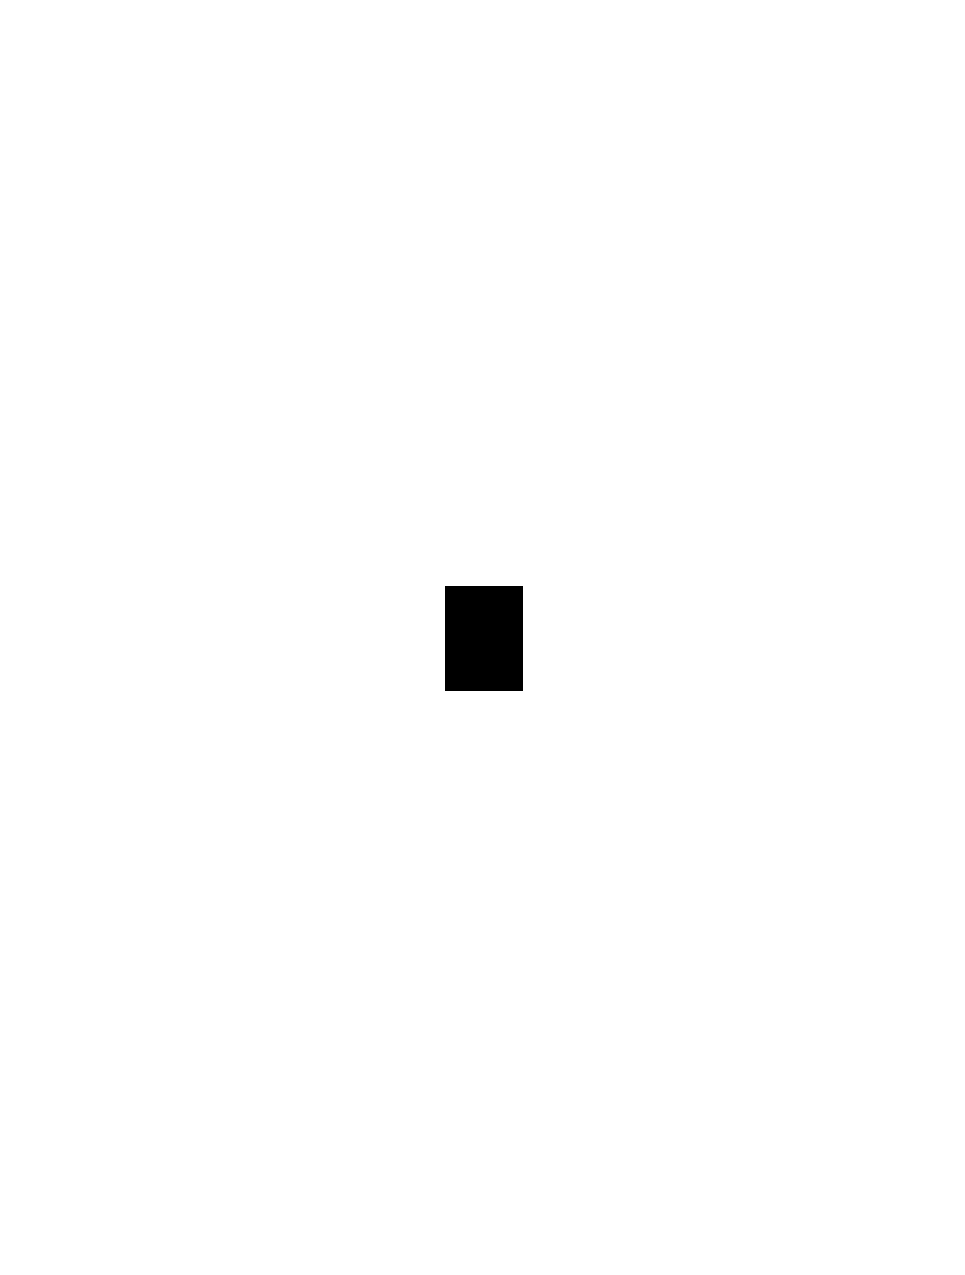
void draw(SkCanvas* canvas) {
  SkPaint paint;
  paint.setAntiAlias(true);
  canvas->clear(0xffffffff);
  paint.setColor(0xff000000);
  canvas->drawRect(SkRect::MakeXYWH(445, 586, 78, 105), paint);
}
